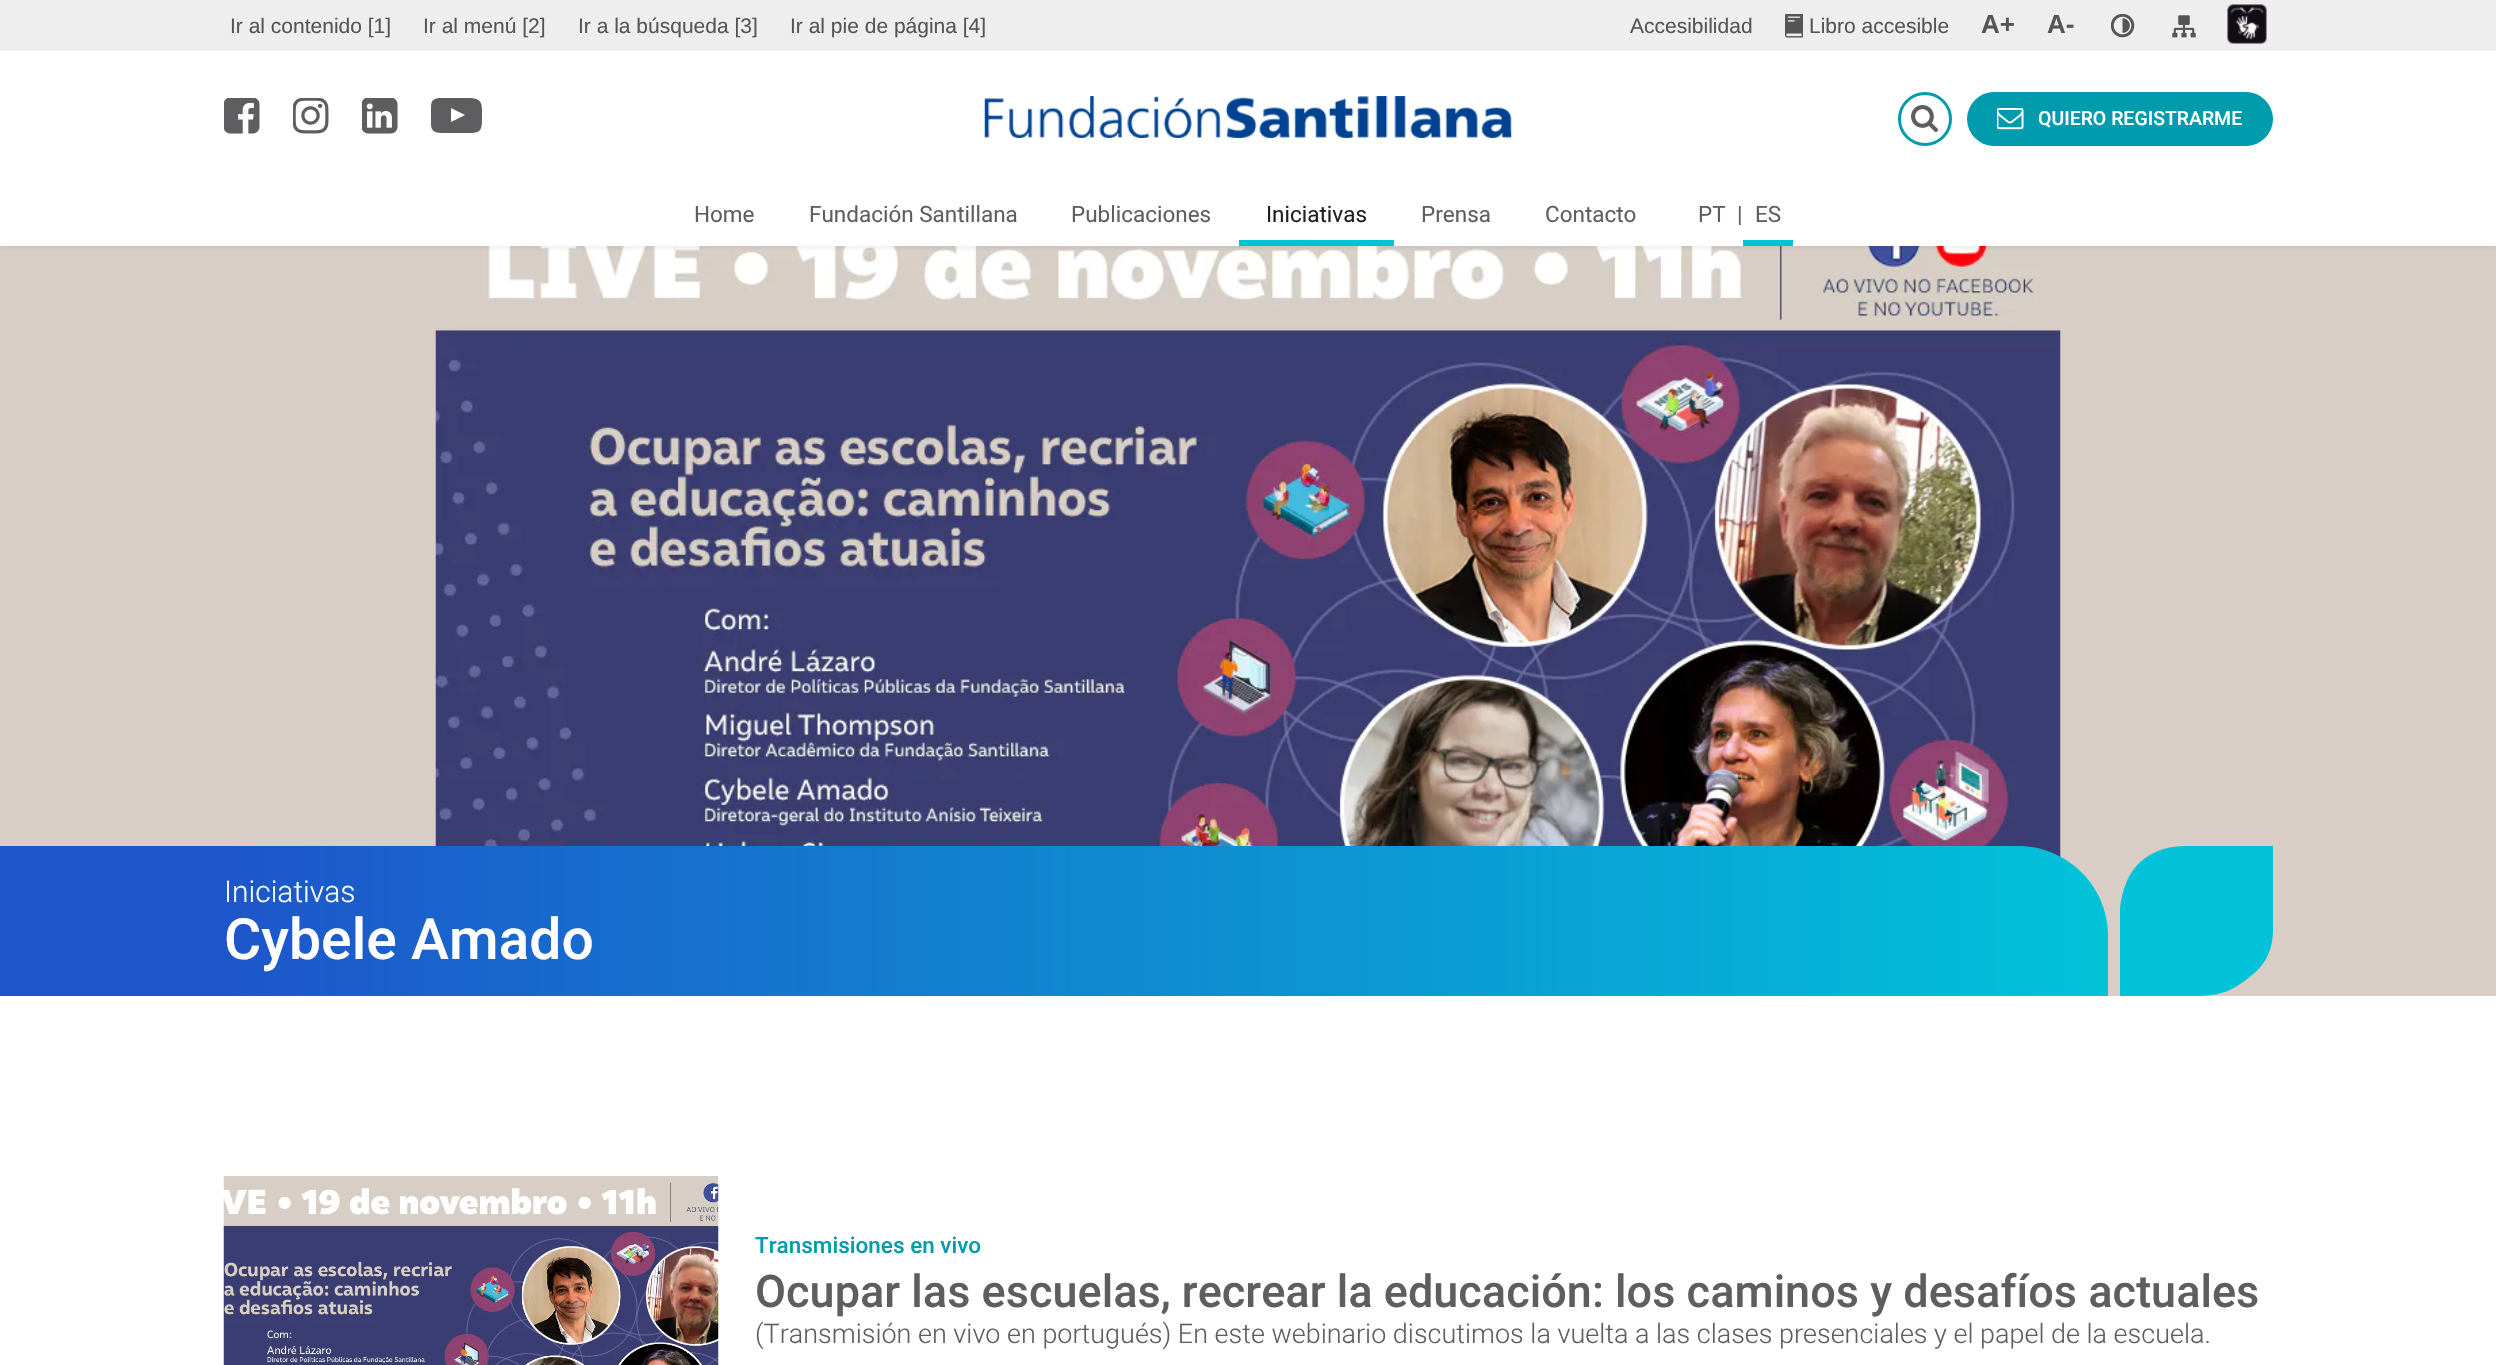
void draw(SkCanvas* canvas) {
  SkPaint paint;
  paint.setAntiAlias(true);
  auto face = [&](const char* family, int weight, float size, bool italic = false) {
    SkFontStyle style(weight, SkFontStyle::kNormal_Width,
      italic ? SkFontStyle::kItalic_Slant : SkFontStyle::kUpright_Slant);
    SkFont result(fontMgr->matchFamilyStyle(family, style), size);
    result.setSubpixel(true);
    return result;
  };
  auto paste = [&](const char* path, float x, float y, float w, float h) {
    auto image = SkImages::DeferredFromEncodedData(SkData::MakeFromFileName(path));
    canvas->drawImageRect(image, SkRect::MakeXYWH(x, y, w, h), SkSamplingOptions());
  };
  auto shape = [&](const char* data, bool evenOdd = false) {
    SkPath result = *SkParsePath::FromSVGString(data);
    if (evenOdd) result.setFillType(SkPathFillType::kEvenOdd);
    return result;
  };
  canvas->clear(0xffffffff);
  paint.setColor(0xffd8cec6);
  canvas->drawRect(SkRect::MakeXYWH(0, 246, 2496, 750), paint);
  paste("img/11.png", 435, 246, 1626, 611);
  canvas->save();
  canvas->clipRect(SkRect::MakeXYWH(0, 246, 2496, 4));
  paint.setColor(0x1a000000);
  paint.setMaskFilter(SkMaskFilter::MakeBlur(kNormal_SkBlurStyle, 4.5f));
  canvas->drawRect(SkRect::MakeXYWH(0, 51, 2496, 195), paint);
  paint.setMaskFilter(nullptr);
  canvas->restore();
  paint.setColor(0xffeeeeee);
  canvas->drawRect(SkRect::MakeXYWH(0, 0, 2496, 51), paint);
  paste("img/1.png", 1785, 14, 18, 24);
  paste("img/2.png", 2111, 14, 24, 24);
  paste("img/3.png", 2172, 15, 24, 23);
  paste("img/4.png", 2227, 4, 40, 40);
  paste("img/5.png", 984, 96, 528, 42);
  paste("img/6.png", 224, 98, 36, 36);
  paste("img/7.png", 293, 98, 36, 36);
  paste("img/8.png", 362, 98, 36, 36);
  canvas->save();
  canvas->clipRect(SkRect::MakeXYWH(431, 98, 52, 36));
  paint.setColor(0xff5e5d5f);
  canvas->drawPath(shape("M451 122L465 115L451 108ZM456 98H471C483 99 482 105 482 116C482 129 482 133 470 133H442C429 133 431 126 431 115C431 102 430 98 442 98Z"), paint);
  canvas->restore();
  paint.setStroke(true);
  paint.setStrokeWidth(3);
  paint.setColor(0xff009cad);
  canvas->drawCircle(1925, 119, 25.5f, paint);
  paste("img/9.png", 1911, 105, 27, 27);
  paint.setStroke(false);
  canvas->drawRoundRect(SkRect::MakeXYWH(1967, 92, 306, 54), 27, 27, paint);
  paste("img/10.png", 1997, 108, 27, 22);
  {
    const struct { float x, y, w, h; SkColor color; } items[] = {
      {1239, 240, 155, 6, 0xff01c2d9},
      {1743, 240, 50, 6, 0xff01c2d9},
      {0, 846, 224, 150, 0xff1d56ca},
    };
    for (auto [x, y, w, h, color] : items) {
      paint.setColor(color);
      canvas->drawRect(SkRect::MakeXYWH(x, y, w, h), paint);
    }
  }
  {
    const SkColor colors[] = {0xff1d56ca, 0xff01c2d9};
    const float stops[] = {0, 1};
    const SkPoint ends[] = {{224, 921}, {2108, 921}};
    paint.setShader(SkGradientShader::MakeLinear(ends, colors, stops, 2, SkTileMode::kClamp));
    paint.setAlpha(255);
  }
  canvas->drawPath(shape("M224 846H2018C2067.5 846 2108 886.5 2108 936V996H224Z"), paint);
  canvas->save();
  canvas->clipRect(SkRect::MakeXYWH(2120, 846, 153, 150));
  paint.setShader(nullptr);
  paint.setColor(0xff01c2d9);
  canvas->drawPath(shape("M2120 913V996H2194C2223 996 2234 990 2252 975C2273 959 2273 936 2273 929V846H2203C2186 846 2163 844 2144 859C2125 873 2120 900 2120 913Z"), paint);
  canvas->restore();
  paste("img/12.png", 223, 1176, 496, 189);
  auto f0 = face("Liberation Sans", 400, 21);
  paint.setColor(0xff555555);
  {
    const struct { const char* s; float x, y; } items[] = {
      {"Ir al contenido [1]", 230, 33},
      {"Ir al menú [2]", 423, 33},
      {"Ir a la búsqueda [3]", 578, 33},
      {"Ir al pie de página [4]", 790, 33},
      {"Accesibilidad", 1630, 33},
      {"Libro accesible", 1809, 33},
    };
    for (auto [s, x, y] : items) {
      canvas->drawString(s, x, y, f0, paint);
    }
  }
  auto f1 = face("Liberation Sans", 700, 26);
  canvas->drawString("A+", 1981, 33, f1, paint);
  canvas->drawString("A-", 2047, 33, f1, paint);
  auto f2 = face("Roboto", 500, 19.5f);
  paint.setColor(0xffffffff);
  canvas->drawString("QUIERO REGISTRARME", 2038, 125, f2, paint);
  auto f3 = face("Roboto", 400, 22.5f);
  paint.setColor(0xff5e5d5f);
  {
    const struct { const char* s; float x, y; } items[] = {
      {"Home", 694, 222},
      {"Fundación Santillana", 809, 222},
      {"Publicaciones", 1071, 222},
    };
    for (auto [s, x, y] : items) {
      canvas->drawString(s, x, y, f3, paint);
    }
  }
  paint.setColor(0xff202020);
  canvas->drawString("Iniciativas", 1266, 222, f3, paint);
  paint.setColor(0xff5e5d5f);
  {
    const struct { const char* s; float x, y; } items[] = {
      {"Prensa", 1421, 222},
      {"Contacto", 1545, 222},
      {"PT", 1698, 222},
      {"|", 1737, 222},
      {"ES", 1755, 222},
    };
    for (auto [s, x, y] : items) {
      canvas->drawString(s, x, y, f3, paint);
    }
  }
  auto f4 = face("Roboto", 300, 30);
  paint.setColor(0xffffffff);
  canvas->drawString("Iniciativas", 224, 902, f4, paint);
  auto f5 = face("Roboto", 500, 57);
  canvas->drawString("Cybele Amado", 224, 959, f5, paint);
  auto f6 = face("Roboto", 500, 22.5f);
  paint.setColor(0xff009cad);
  canvas->drawString("Transmisiones en vivo", 755, 1253, f6, paint);
  auto f7 = face("Roboto", 500, 45);
  paint.setColor(0xff5e5d5f);
  canvas->drawString("Ocupar las escuelas, recrear la educación: los caminos y desafíos actuales", 755, 1307, f7, paint);
  auto f8 = face("Roboto", 300, 27);
  canvas->drawString("(Transmisión en vivo en portugués) En este webinario discutimos la vuelta a las clases presenciales y el papel de la escuela.", 755, 1343, f8, paint);
}
